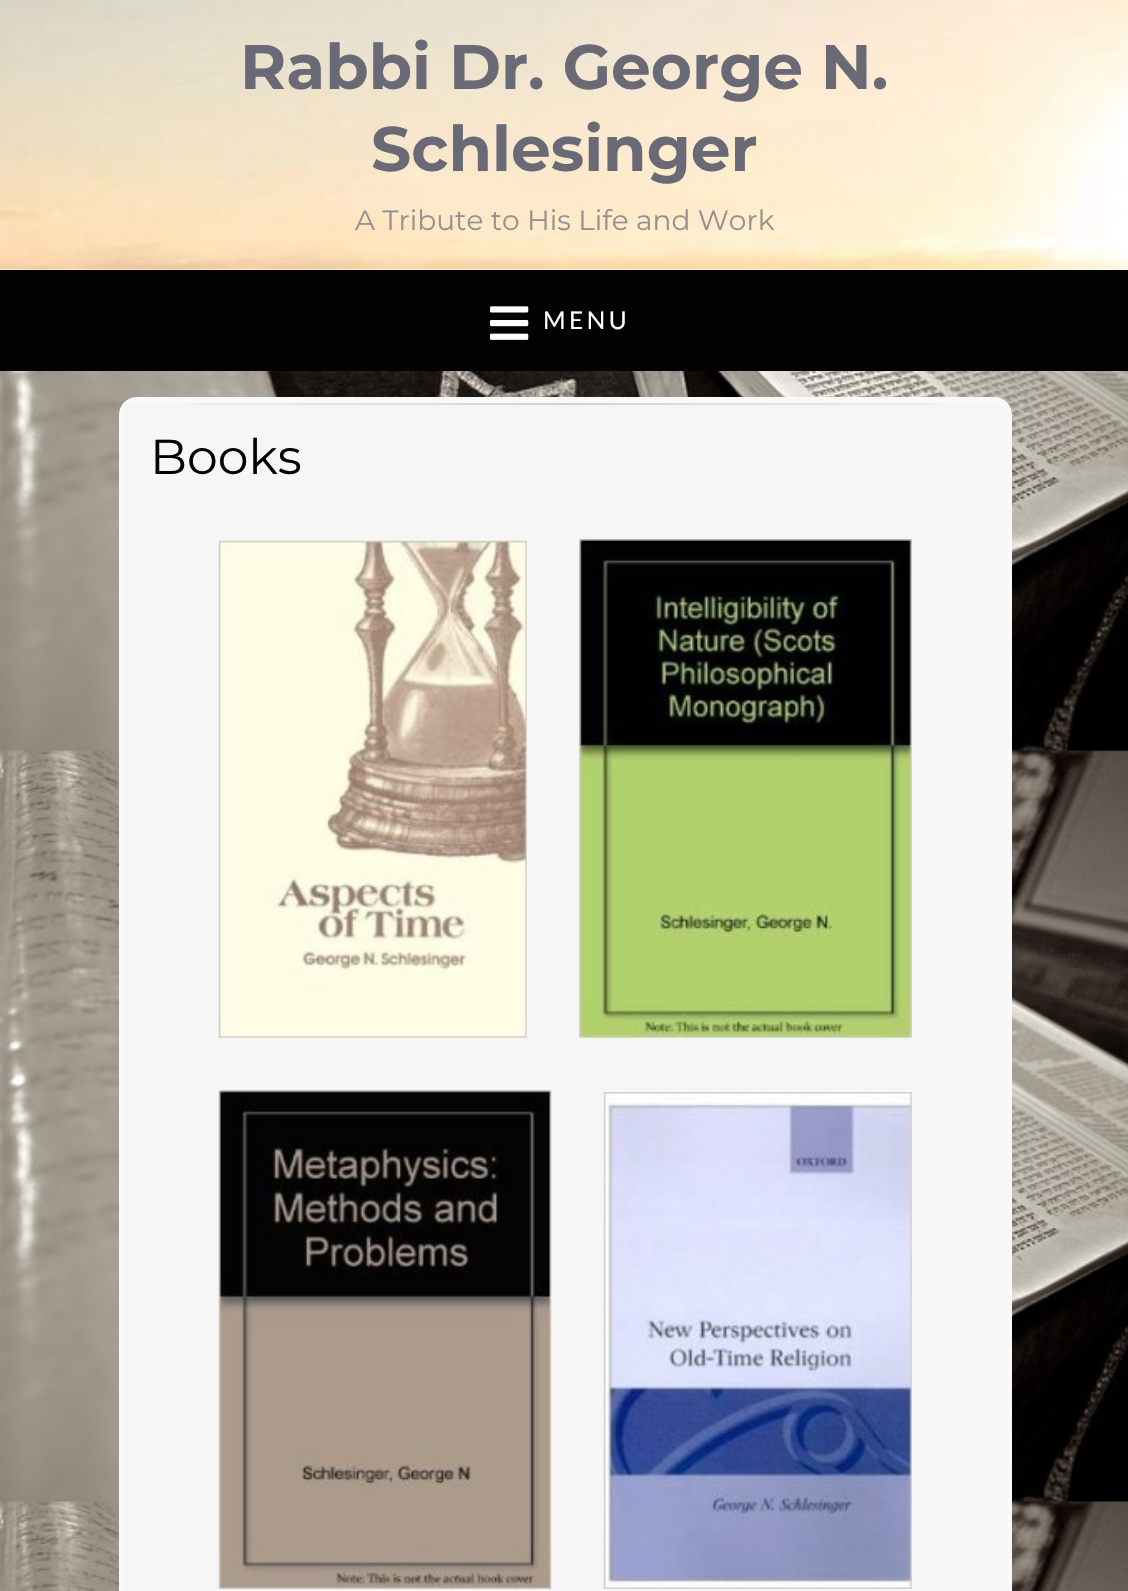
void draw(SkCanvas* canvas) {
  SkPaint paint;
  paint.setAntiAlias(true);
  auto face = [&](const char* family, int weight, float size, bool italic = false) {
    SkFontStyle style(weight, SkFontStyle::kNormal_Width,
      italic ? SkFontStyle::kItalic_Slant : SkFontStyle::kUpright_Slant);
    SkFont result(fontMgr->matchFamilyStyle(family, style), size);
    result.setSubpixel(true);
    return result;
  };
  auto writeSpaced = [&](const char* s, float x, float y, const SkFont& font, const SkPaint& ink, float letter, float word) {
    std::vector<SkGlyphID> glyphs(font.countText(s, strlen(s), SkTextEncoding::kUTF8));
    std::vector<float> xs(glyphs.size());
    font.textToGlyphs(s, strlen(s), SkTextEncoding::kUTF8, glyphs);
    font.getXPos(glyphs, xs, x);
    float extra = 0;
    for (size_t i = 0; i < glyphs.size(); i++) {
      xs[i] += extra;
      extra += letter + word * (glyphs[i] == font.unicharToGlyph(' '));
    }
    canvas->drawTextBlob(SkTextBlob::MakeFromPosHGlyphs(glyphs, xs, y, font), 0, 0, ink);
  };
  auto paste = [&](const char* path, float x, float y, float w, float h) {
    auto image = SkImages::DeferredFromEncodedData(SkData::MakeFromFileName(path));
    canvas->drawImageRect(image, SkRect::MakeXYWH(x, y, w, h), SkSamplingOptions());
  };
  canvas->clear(0xffffffff);
  paste("img/1.png", 0, 371, 1128, 1220);
  paste("img/2.png", 0, 0, 1128, 270);
  paint.setColor(0xff020202);
  canvas->drawRect(SkRect::MakeXYWH(0, 270, 1128, 101), paint);
  paste("img/3.png", 490, 306, 39, 34);
  paint.setColor(0xfff6f6f6);
  canvas->drawRoundRect(SkRect::MakeXYWH(121.5f, 399.5f, 888, 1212), 15.5f, 15.5f, paint);
  paint.setStroke(true);
  paint.setStrokeWidth(5);
  paint.setColor(0xfff9f9f9);
  canvas->drawRoundRect(SkRect::MakeXYWH(121.5f, 399.5f, 888, 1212), 15.5f, 15.5f, paint);
  paint.setStroke(false);
  {
    const SkColor colors[] = {0x00000000, 0x26000000, 0x00000000};
    const float stops[] = {0, 0.5f, 1};
    const SkPoint ends[] = {{124, 403}, {1006, 403}};
    paint.setShader(SkGradientShader::MakeLinear(ends, colors, stops, 3, SkTileMode::kClamp));
    paint.setAlpha(255);
  }
  canvas->drawRect(SkRect::MakeXYWH(187, 403, 756, 2), paint);
  paste("img/4.png", 218, 540, 309, 498);
  paste("img/5.png", 579, 539, 333, 499);
  paste("img/6.png", 218, 1090, 334, 499);
  paste("img/7.png", 603, 1092, 309, 497);
  auto f0 = face("Montserrat", 700, 63);
  paint.setShader(nullptr);
  paint.setColor(0xff6a6a77);
  canvas->drawString("Rabbi Dr. George N.", 240, 89, f0, paint);
  canvas->drawString("Schlesinger", 371, 171, f0, paint);
  auto f1 = face("Montserrat", 400, 28);
  paint.setColor(0xff969190);
  canvas->drawString("A Tribute to His Life and Work", 355, 230, f1, paint);
  auto f2 = face("Lato", 400, 24.5f);
  paint.setColor(0xffffffff);
  writeSpaced("MENU", 543, 329, f2, paint, 3.5f, 0);
  auto f3 = face("Montserrat", 400, 49);
  paint.setColor(0xff020202);
  canvas->drawString("Books", 150, 474, f3, paint);
}
